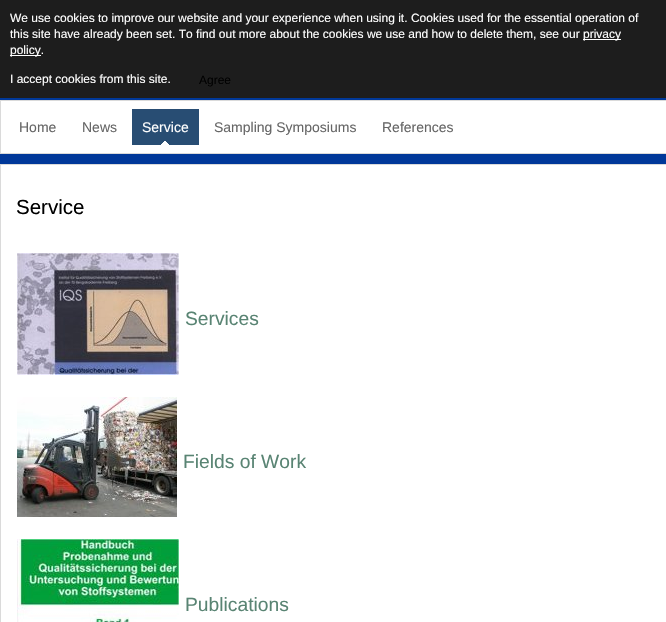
void draw(SkCanvas* canvas) {
  SkPaint paint;
  paint.setAntiAlias(true);
  auto face = [&](const char* family, int weight, float size, bool italic = false) {
    SkFontStyle style(weight, SkFontStyle::kNormal_Width,
      italic ? SkFontStyle::kItalic_Slant : SkFontStyle::kUpright_Slant);
    SkFont result(fontMgr->matchFamilyStyle(family, style), size);
    result.setSubpixel(true);
    return result;
  };
  auto paste = [&](const char* path, float x, float y, float w, float h) {
    auto image = SkImages::DeferredFromEncodedData(SkData::MakeFromFileName(path));
    canvas->drawImageRect(image, SkRect::MakeXYWH(x, y, w, h), SkSamplingOptions());
  };
  canvas->clear(0xffffffff);
  paste("img/1.png", 0, 98, 666, 66);
  {
    const struct { float x, y, w, h; SkColor color; } items[] = {
      {0, 0, 666, 98, 0xff1d1d1d},
      {583, 39, 38, 1, 0xffffffff},
      {10, 55, 31, 1, 0xffffffff},
    };
    for (auto [x, y, w, h, color] : items) {
      paint.setColor(color);
      canvas->drawRect(SkRect::MakeXYWH(x, y, w, h), paint);
    }
  }
  canvas->drawRect(SkRect::MakeXYWH(0.5f, 100.5f, 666, 53), paint);
  paint.setStroke(true);
  paint.setStrokeWidth(1);
  paint.setColor(0xffdadada);
  canvas->drawRect(SkRect::MakeXYWH(0.5f, 100.5f, 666, 53), paint);
  paint.setStroke(false);
  paint.setColor(0xff284d73);
  canvas->drawRect(SkRect::MakeXYWH(132, 109, 67, 36), paint);
  paste("img/2.png", 161, 141, 8, 4);
  paint.setStroke(true);
  paint.setColor(0xffdadada);
  canvas->drawRect(SkRect::MakeXYWH(0.5f, 164.5f, 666, 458), paint);
  paste("img/3.png", 17, 253, 162, 122);
  paste("img/4.png", 17, 397, 160, 120);
  paste("img/5.png", 17, 539, 162, 83);
  auto f0 = face("Liberation Sans", 400, 12);
  paint.setStroke(false);
  paint.setColor(0xffffffff);
  {
    const struct { const char* s; float x, y; } items[] = {
      {"We use cookies to improve our website and your experience when using it. Cookies used for the essential operation of", 10, 22},
      {"this site have already been set. To find out more about the cookies we use and how to delete them, see our", 10, 38},
      {"privacy", 583, 38},
      {"policy.", 10, 54},
      {"I accept cookies from this site.", 10, 83},
    };
    for (auto [s, x, y] : items) {
      canvas->drawString(s, x, y, f0, paint);
    }
  }
  paint.setColor(0xff000000);
  canvas->drawString("Agree", 199, 84, f0, paint);
  auto f1 = face("Liberation Sans", 400, 14);
  paint.setColor(0xff666666);
  canvas->drawString("Home", 19, 132, f1, paint);
  canvas->drawString("News", 82, 132, f1, paint);
  paint.setColor(0xffffffff);
  canvas->drawString("Service", 142, 132, f1, paint);
  paint.setColor(0xff666666);
  canvas->drawString("Sampling Symposiums", 214, 132, f1, paint);
  canvas->drawString("References", 382, 132, f1, paint);
  auto f2 = face("Liberation Sans", 400, 20.5f);
  paint.setColor(0xff000000);
  canvas->drawString("Service", 16, 214, f2, paint);
  auto f3 = face("Liberation Sans", 400, 19.25f);
  paint.setColor(0xff598473);
  {
    const struct { const char* s; float x, y; } items[] = {
      {"Services", 185, 325},
      {"Fields of Work", 183, 468},
      {"Publications", 185, 611},
    };
    for (auto [s, x, y] : items) {
      canvas->drawString(s, x, y, f3, paint);
    }
  }
}
